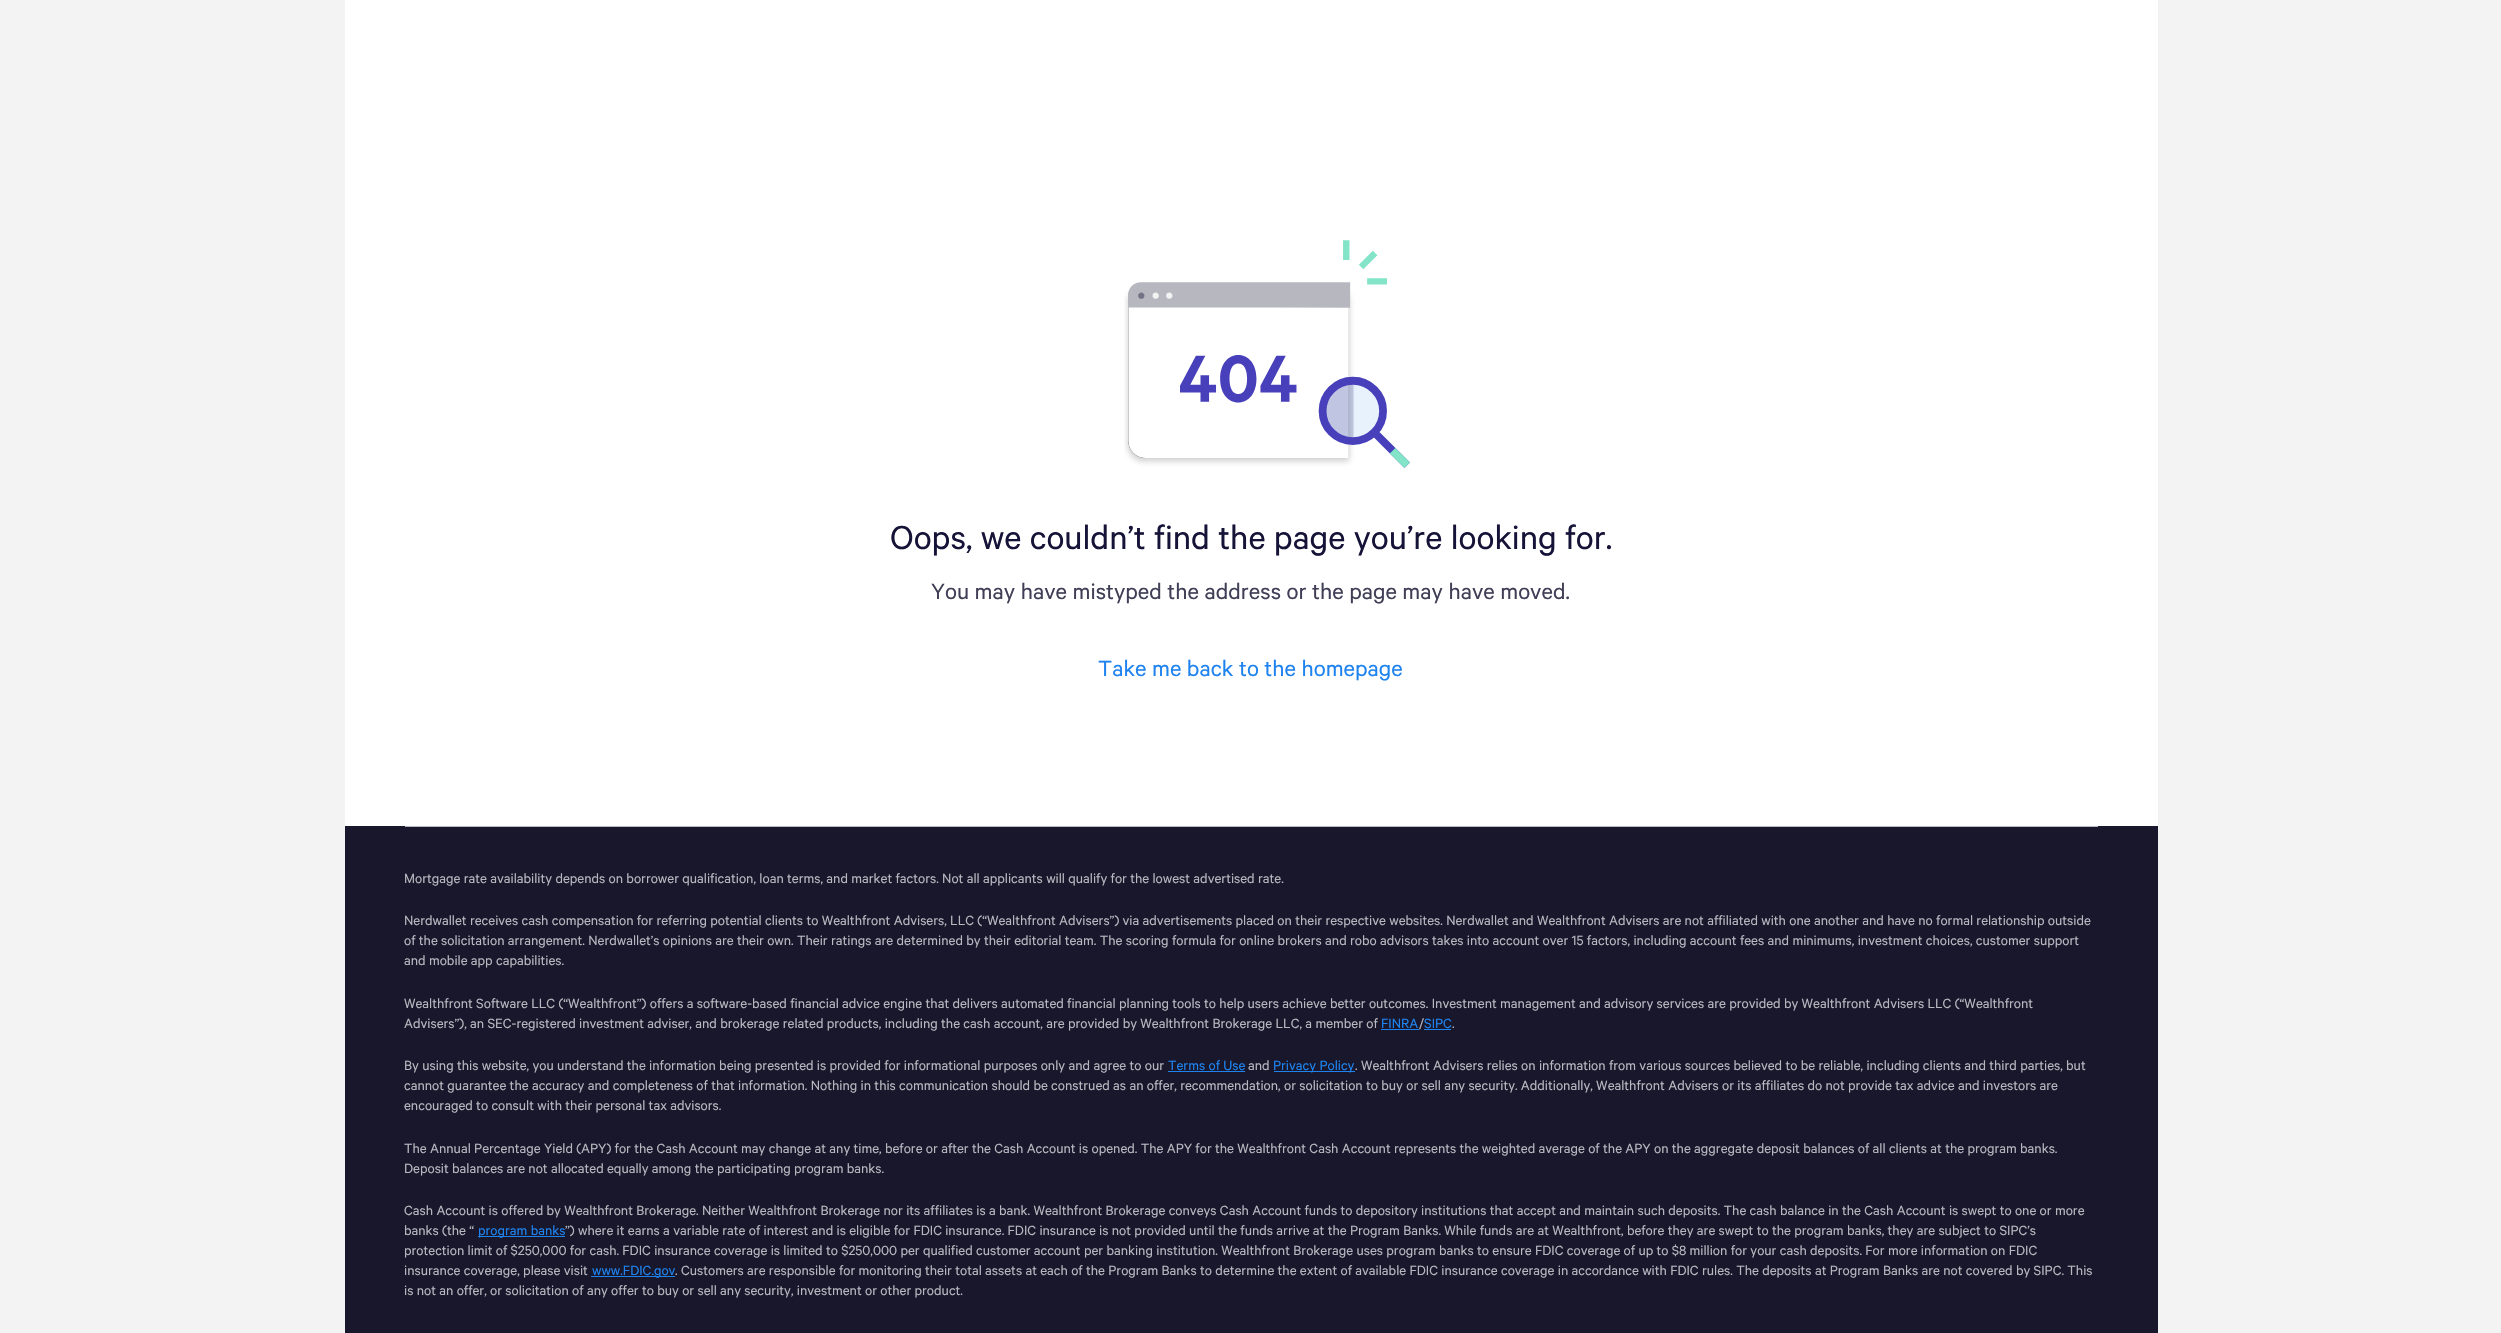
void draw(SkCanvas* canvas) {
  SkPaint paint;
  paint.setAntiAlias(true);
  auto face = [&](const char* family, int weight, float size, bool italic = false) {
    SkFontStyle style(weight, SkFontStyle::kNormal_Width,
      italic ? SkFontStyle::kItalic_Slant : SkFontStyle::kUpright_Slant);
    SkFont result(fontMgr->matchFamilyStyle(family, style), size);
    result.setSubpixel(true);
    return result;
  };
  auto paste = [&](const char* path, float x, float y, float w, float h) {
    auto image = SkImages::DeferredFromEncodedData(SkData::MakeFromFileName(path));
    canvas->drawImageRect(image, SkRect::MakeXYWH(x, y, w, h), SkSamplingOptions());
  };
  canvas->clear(0xfff3f3f3);
  paint.setColor(0xffffffff);
  canvas->drawRect(SkRect::MakeXYWH(345, 0, 1813, 826), paint);
  paste("img/1.png", 1124, 240, 286, 228);
  {
    const struct { float x, y, w, h; SkColor color; } items[] = {
      {345, 826, 1813, 507, 0xff18172b},
      {405, 826, 1693, 1, 0xffb7b7c0},
      {1381, 1029, 38, 1, 0xff1e83ef},
      {1424, 1029, 27, 1, 0xff1e83ef},
      {1168, 1071, 77, 1, 0xff1e83ef},
      {1274, 1071, 81, 1, 0xff1e83ef},
      {478, 1236, 87, 1, 0xff1e83ef},
      {591, 1276, 84, 1, 0xff1e83ef},
    };
    for (auto [x, y, w, h, color] : items) {
      paint.setColor(color);
      canvas->drawRect(SkRect::MakeXYWH(x, y, w, h), paint);
    }
  }
  auto f0 = face("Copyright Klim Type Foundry", 400, 37.5f);
  paint.setColor(0xff161338);
  canvas->drawString("Oops, we couldn’t find the page you’re looking for.", 890, 549, f0, paint);
  auto f1 = face("Copyright Klim Type Foundry", 400, 25);
  paint.setColor(0xff413f57);
  canvas->drawString("You may have mistyped the address or the page may have moved.", 931, 599, f1, paint);
  paint.setColor(0xff1e83ef);
  canvas->drawString("Take me back to the homepage", 1098, 676, f1, paint);
  auto f2 = face("Copyright Klim Type Foundry", 400, 15);
  paint.setColor(0xffb7b7c0);
  {
    const struct { const char* s; float x, y; } items[] = {
      {"Mortgage rate availability depends on borrower qualification, loan terms, and market factors. Not all applicants will qualify for the lowest advertised rate.", 404, 883},
      {"Nerdwallet receives cash compensation for referring potential clients to Wealthfront Advisers, LLC (“Wealthfront Advisers”) via advertisements placed on their respective websites. Nerdwallet and Wealthfront Advisers are not affiliated with one another and have no formal relationship outside", 404, 925},
      {"of the solicitation arrangement. Nerdwallet’s opinions are their own. Their ratings are determined by their editorial team. The scoring formula for online brokers and robo advisors takes into account over 15 factors, including account fees and minimums, investment choices, customer support", 404, 945},
      {"and mobile app capabilities.", 404, 965},
      {"Wealthfront Software LLC (“Wealthfront”) offers a software-based financial advice engine that delivers automated financial planning tools to help users achieve better outcomes. Investment management and advisory services are provided by Wealthfront Advisers LLC (“Wealthfront", 404, 1008},
      {"Advisers”), an SEC-registered investment adviser, and brokerage related products, including the cash account, are provided by Wealthfront Brokerage LLC, a member of", 404, 1028},
    };
    for (auto [s, x, y] : items) {
      canvas->drawString(s, x, y, f2, paint);
    }
  }
  paint.setColor(0xff1e83ef);
  canvas->drawString("FINRA", 1381, 1028, f2, paint);
  paint.setColor(0xffb7b7c0);
  canvas->drawString("/", 1419, 1028, f2, paint);
  paint.setColor(0xff1e83ef);
  canvas->drawString("SIPC", 1424, 1028, f2, paint);
  paint.setColor(0xffb7b7c0);
  canvas->drawString(".", 1452, 1028, f2, paint);
  canvas->drawString("By using this website, you understand the information being presented is provided for informational purposes only and agree to our", 404, 1070, f2, paint);
  paint.setColor(0xff1e83ef);
  canvas->drawString("Terms of Use", 1168, 1070, f2, paint);
  paint.setColor(0xffb7b7c0);
  canvas->drawString("and", 1248, 1070, f2, paint);
  paint.setColor(0xff1e83ef);
  canvas->drawString("Privacy Policy", 1273, 1070, f2, paint);
  paint.setColor(0xffb7b7c0);
  {
    const struct { const char* s; float x, y; } items[] = {
      {". Wealthfront Advisers relies on information from various sources believed to be reliable, including clients and third parties, but", 1355, 1070},
      {"cannot guarantee the accuracy and completeness of that information. Nothing in this communication should be construed as an offer, recommendation, or solicitation to buy or sell any security. Additionally, Wealthfront Advisers or its affiliates do not provide tax advice and investors are", 404, 1090},
      {"encouraged to consult with their personal tax advisors.", 404, 1110},
      {"The Annual Percentage Yield (APY) for the Cash Account may change at any time, before or after the Cash Account is opened. The APY for the Wealthfront Cash Account represents the weighted average of the APY on the aggregate deposit balances of all clients at the program banks.", 404, 1153},
      {"Deposit balances are not allocated equally among the participating program banks.", 404, 1173},
      {"Cash Account is offered by Wealthfront Brokerage. Neither Wealthfront Brokerage nor its affiliates is a bank. Wealthfront Brokerage conveys Cash Account funds to depository institutions that accept and maintain such deposits. The cash balance in the Cash Account is swept to one or more", 404, 1215},
      {"banks (the “", 404, 1235},
    };
    for (auto [s, x, y] : items) {
      canvas->drawString(s, x, y, f2, paint);
    }
  }
  paint.setColor(0xff1e83ef);
  canvas->drawString("program banks", 478, 1235, f2, paint);
  paint.setColor(0xffb7b7c0);
  {
    const struct { const char* s; float x, y; } items[] = {
      {"”) where it earns a variable rate of interest and is eligible for FDIC insurance. FDIC insurance is not provided until the funds arrive at the Program Banks. While funds are at Wealthfront, before they are swept to the program banks, they are subject to SIPC’s", 565, 1235},
      {"protection limit of $250,000 for cash. FDIC insurance coverage is limited to $250,000 per qualified customer account per banking institution. Wealthfront Brokerage uses program banks to ensure FDIC coverage of up to $8 million for your cash deposits. For more information on FDIC", 404, 1255},
      {"insurance coverage, please visit", 404, 1275},
    };
    for (auto [s, x, y] : items) {
      canvas->drawString(s, x, y, f2, paint);
    }
  }
  paint.setColor(0xff1e83ef);
  canvas->drawString("www.FDIC.gov", 592, 1275, f2, paint);
  paint.setColor(0xffb7b7c0);
  canvas->drawString(". Customers are responsible for monitoring their total assets at each of the Program Banks to determine the extent of available FDIC insurance coverage in accordance with FDIC rules. The deposits at Program Banks are not covered by SIPC. This", 675, 1275, f2, paint);
  canvas->drawString("is not an offer, or solicitation of any offer to buy or sell any security, investment or other product.", 404, 1295, f2, paint);
}
